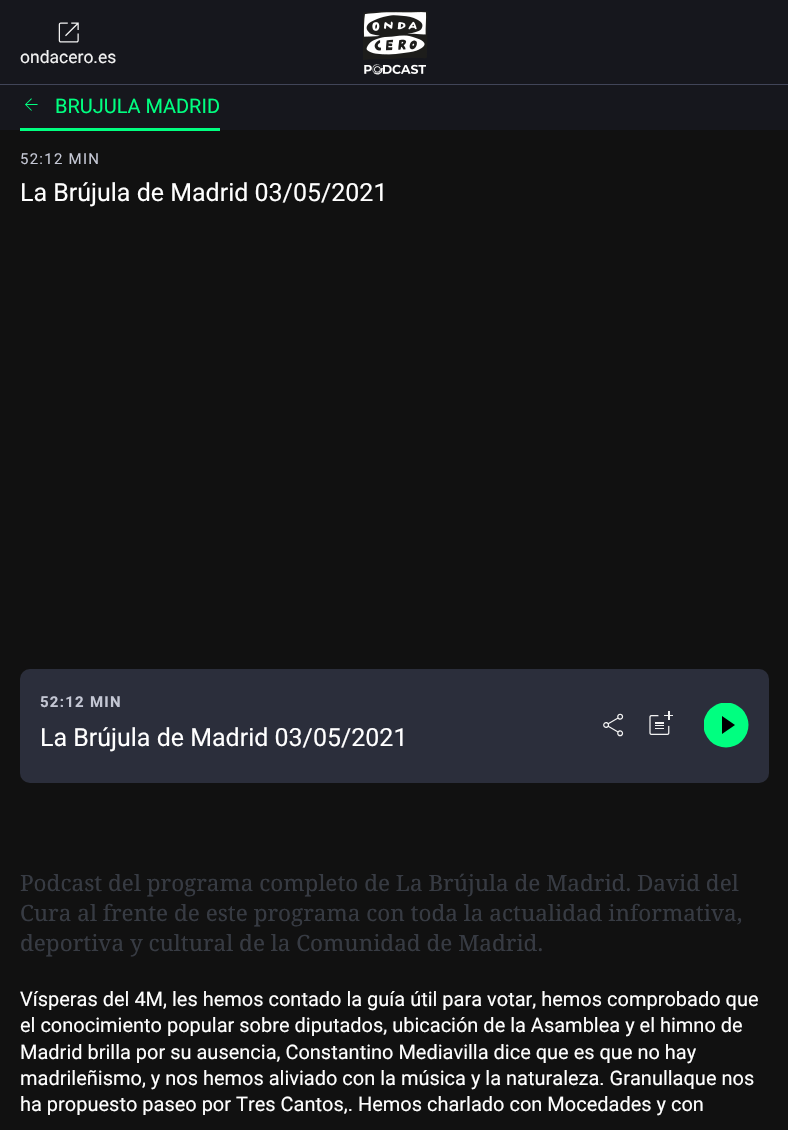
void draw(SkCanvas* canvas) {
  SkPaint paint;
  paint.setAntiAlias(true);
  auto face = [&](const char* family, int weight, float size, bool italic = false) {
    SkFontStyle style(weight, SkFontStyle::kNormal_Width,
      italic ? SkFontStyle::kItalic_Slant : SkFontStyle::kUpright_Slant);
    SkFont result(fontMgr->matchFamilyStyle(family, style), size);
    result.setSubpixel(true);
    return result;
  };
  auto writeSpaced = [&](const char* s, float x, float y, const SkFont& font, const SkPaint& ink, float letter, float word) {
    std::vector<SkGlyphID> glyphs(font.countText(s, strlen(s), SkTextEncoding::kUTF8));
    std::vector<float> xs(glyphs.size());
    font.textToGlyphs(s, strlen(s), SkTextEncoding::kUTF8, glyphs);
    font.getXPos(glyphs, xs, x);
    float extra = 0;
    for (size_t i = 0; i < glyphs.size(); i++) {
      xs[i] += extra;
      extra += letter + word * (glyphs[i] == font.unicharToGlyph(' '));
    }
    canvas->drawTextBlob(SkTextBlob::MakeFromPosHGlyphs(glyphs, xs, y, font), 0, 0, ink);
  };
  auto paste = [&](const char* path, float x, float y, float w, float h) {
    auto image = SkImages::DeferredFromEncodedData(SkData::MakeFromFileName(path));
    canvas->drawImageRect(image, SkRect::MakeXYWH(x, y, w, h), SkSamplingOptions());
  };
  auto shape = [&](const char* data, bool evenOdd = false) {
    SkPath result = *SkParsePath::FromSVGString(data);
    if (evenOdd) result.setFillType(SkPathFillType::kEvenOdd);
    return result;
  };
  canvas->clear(0xff111111);
  paint.setColor(0xff16171d);
  canvas->drawRect(SkRect::MakeXYWH(0, 0, 788, 84), paint);
  paint.setColor(0xff414558);
  canvas->drawRect(SkRect::MakeXYWH(0, 84, 788, 1), paint);
  paste("img/1.png", 58, 22, 21, 21);
  paste("img/2.png", 363, 11, 65, 64);
  paint.setColor(0xff16171d);
  canvas->drawRect(SkRect::MakeXYWH(0, 85, 788, 45), paint);
  paint.setColor(0xff00ff80);
  canvas->drawRect(SkRect::MakeXYWH(20, 128, 200, 3), paint);
  paste("img/3.png", 25, 98, 13, 13);
  paint.setColor(0xff2b2e3b);
  canvas->drawRoundRect(SkRect::MakeXYWH(20, 669, 749, 114), 10, 10, paint);
  paste("img/4.png", 603, 713, 21, 24);
  paste("img/5.png", 649, 711, 24, 24);
  canvas->save();
  canvas->clipRect(SkRect::MakeXYWH(704, 703, 45, 45));
  paint.setColor(0xff00ff80);
  canvas->drawCircle(726, 725, 22.5f, paint);
  canvas->restore();
  paint.setColor(0xff000000);
  canvas->drawPath(shape("M722 716V734L735 725Z"), paint);
  auto f0 = face("Roboto", 400, 17.5f);
  paint.setColor(0xfff2f2f2);
  canvas->drawString("ondacero.es", 20, 63, f0, paint);
  auto f1 = face("Roboto", 400, 20);
  paint.setColor(0xff00ff80);
  canvas->drawString("BRUJULA MADRID", 55, 113, f1, paint);
  auto f2 = face("Roboto", 400, 15);
  paint.setColor(0xffc4c7d4);
  writeSpaced("52:12 MIN", 20, 164, f2, paint, 1.25f, 0);
  auto f3 = face("Roboto", 400, 25);
  paint.setColor(0xffffffff);
  canvas->drawString("La Brújula de Madrid 03/05/2021", 20, 201, f3, paint);
  auto f4 = face("Roboto", 700, 15);
  paint.setColor(0xffc4c7d4);
  writeSpaced("52:12 MIN", 40, 707, f4, paint, 1.25f, 0);
  paint.setColor(0xffffffff);
  canvas->drawString("La Brújula de Madrid 03/05/2021", 40, 746, f3, paint);
  auto f5 = face("Noto Serif", 400, 22.5f);
  paint.setColor(0xff373b43);
  {
    const struct { const char* s; float x, y; } items[] = {
      {"Podcast del programa completo de La Brújula de Madrid. David del", 20, 891},
      {"Cura al frente de este programa con toda la actualidad informativa,", 20, 921},
      {"deportiva y cultural de la Comunidad de Madrid.", 20, 951},
    };
    for (auto [s, x, y] : items) {
      canvas->drawString(s, x, y, f5, paint);
    }
  }
  paint.setColor(0xffffffff);
  {
    const struct { const char* s; float x, y; } items[] = {
      {"Vísperas del 4M, les hemos contado la guía útil para votar, hemos comprobado que", 20, 1006},
      {"el conocimiento popular sobre diputados, ubicación de la Asamblea y el himno de", 20, 1032},
      {"Madrid brilla por su ausencia, Constantino Mediavilla dice que es que no hay", 20, 1059},
      {"madrileñismo, y nos hemos aliviado con la música y la naturaleza. Granullaque nos", 20, 1085},
      {"ha propuesto paseo por Tres Cantos,. Hemos charlado con Mocedades y con", 20, 1111},
    };
    for (auto [s, x, y] : items) {
      canvas->drawString(s, x, y, f1, paint);
    }
  }
}
